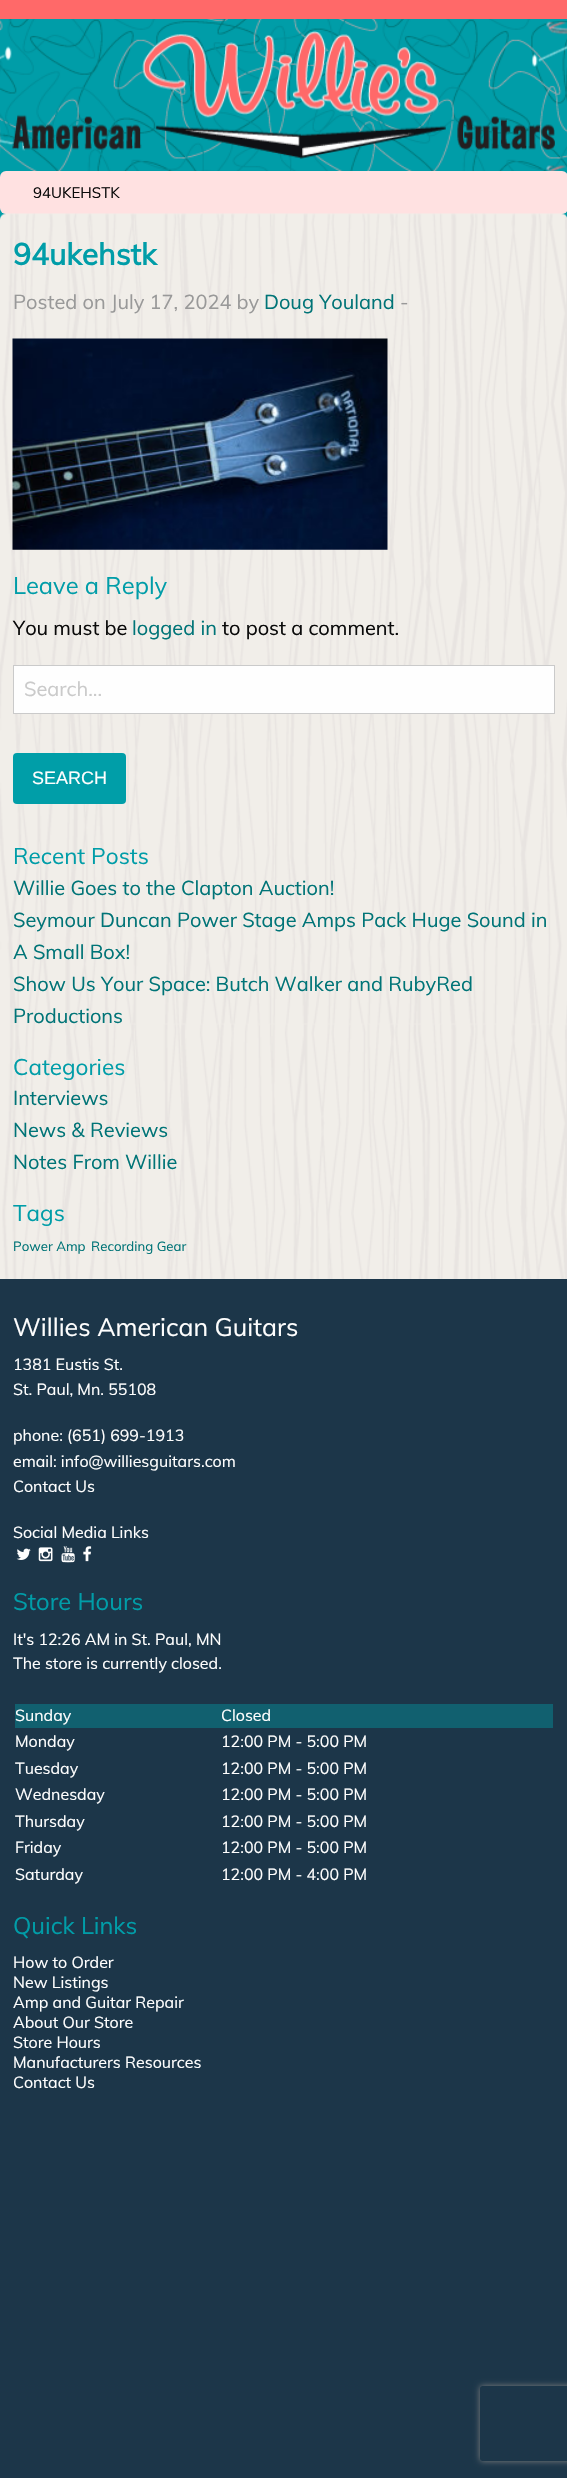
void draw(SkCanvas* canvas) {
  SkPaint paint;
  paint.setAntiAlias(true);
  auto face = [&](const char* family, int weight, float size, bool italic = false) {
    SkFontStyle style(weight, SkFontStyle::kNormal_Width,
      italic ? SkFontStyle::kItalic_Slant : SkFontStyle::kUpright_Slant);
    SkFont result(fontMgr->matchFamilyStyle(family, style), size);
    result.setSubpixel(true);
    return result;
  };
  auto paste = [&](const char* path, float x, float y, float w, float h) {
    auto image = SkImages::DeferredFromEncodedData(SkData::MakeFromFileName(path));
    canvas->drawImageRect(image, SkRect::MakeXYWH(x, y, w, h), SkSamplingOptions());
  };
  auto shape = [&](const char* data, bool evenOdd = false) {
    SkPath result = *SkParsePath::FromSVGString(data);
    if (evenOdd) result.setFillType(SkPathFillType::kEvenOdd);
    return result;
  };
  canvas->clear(0xffffffff);
  paste("img/1.png", 0, 19, 567, 201);
  paint.setColor(0xffff6969);
  canvas->drawRect(SkRect::MakeXYWH(0, 0, 567, 19), paint);
  paste("img/2.png", 0, 21, 567, 150);
  paste("img/3.png", 12, 31, 543, 128);
  paint.setColor(0xffffe1e1);
  canvas->drawRoundRect(SkRect::MakeXYWH(0, 171, 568, 43), 6, 6, paint);
  paste("img/4.png", 0, 213, 567, 1066);
  paste("img/5.png", 12, 338, 376, 212);
  paint.setColor(0xfffefefe);
  canvas->drawRect(SkRect::MakeXYWH(13.5f, 665.5f, 541, 48), paint);
  paint.setStroke(true);
  paint.setStrokeWidth(1);
  paint.setColor(0xffcacaca);
  canvas->drawRect(SkRect::MakeXYWH(13.5f, 665.5f, 541, 48), paint);
  paint.setStroke(false);
  paint.setColor(0xff009ea8);
  canvas->drawRoundRect(SkRect::MakeXYWH(13, 753, 113, 51), 4, 4, paint);
  paint.setColor(0xff1c3649);
  canvas->drawRect(SkRect::MakeXYWH(0, 1279, 567, 1199), paint);
  paste("img/6.png", 16, 1548, 15, 12);
  paste("img/7.png", 38, 1547, 15, 15);
  paste("img/8.png", 61, 1546, 14, 17);
  paste("img/9.png", 83, 1546, 9, 16);
  paint.setColor(0xff11606f);
  canvas->drawRect(SkRect::MakeXYWH(15, 1704, 538, 24), paint);
  canvas->save();
  canvas->clipPath(shape("M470 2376H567V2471H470ZM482.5 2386H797.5C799 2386 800 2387 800 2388.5V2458.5C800 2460 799 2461 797.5 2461H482.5C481 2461 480 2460 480 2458.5V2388.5C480 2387 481 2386 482.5 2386Z", true), true);
  paint.setColor(0xff808080);
  paint.setMaskFilter(SkMaskFilter::MakeBlur(kNormal_SkBlurStyle, 3));
  canvas->drawRoundRect(SkRect::MakeXYWH(480, 2386, 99, 75), 2.5f, 2.5f, paint);
  paint.setMaskFilter(nullptr);
  canvas->restore();
  auto f0 = face("Muli", 400, 15);
  paint.setColor(0xff0a0a0a);
  canvas->drawString("94UKEHSTK", 33, 198, f0, paint);
  auto f1 = face("Muli", 700, 30);
  paint.setColor(0xff009da8);
  canvas->drawString("94ukehstk", 13, 265, f1, paint);
  auto f2 = face("Muli", 400, 20);
  paint.setColor(0xff999999);
  canvas->drawString("Posted on July 17, 2024 by", 13, 309, f2, paint);
  paint.setColor(0xff007477);
  canvas->drawString("Doug Youland", 264, 309, f2, paint);
  paint.setColor(0xff999999);
  canvas->drawString("-", 400, 309, f2, paint);
  auto f3 = face("Muli", 400, 23.75f);
  paint.setColor(0xff009da8);
  canvas->drawString("Leave a Reply", 13, 594, f3, paint);
  paint.setColor(0xff0a0a0a);
  canvas->drawString("You must be", 13, 635, f2, paint);
  paint.setColor(0xff007477);
  canvas->drawString("logged in", 132, 635, f2, paint);
  paint.setColor(0xff0a0a0a);
  canvas->drawString("to post a comment.", 222, 635, f2, paint);
  paint.setColor(0xffcacaca);
  canvas->drawString("Search...", 24, 696, f2, paint);
  auto f4 = face("Liberation Sans", 400, 18);
  paint.setColor(0xfffefefe);
  canvas->drawString("SEARCH", 32, 784, f4, paint);
  auto f5 = face("Muli", 400, 22.5f);
  paint.setColor(0xff009da8);
  canvas->drawString("Recent Posts", 13, 864, f5, paint);
  paint.setColor(0xff007477);
  {
    const struct { const char* s; float x, y; } items[] = {
      {"Willie Goes to the Clapton Auction!", 13, 895},
      {"Seymour Duncan Power Stage Amps Pack Huge Sound in", 13, 927},
      {"A Small Box!", 13, 959},
      {"Show Us Your Space: Butch Walker and RubyRed", 13, 991},
      {"Productions", 13, 1023},
    };
    for (auto [s, x, y] : items) {
      canvas->drawString(s, x, y, f2, paint);
    }
  }
  paint.setColor(0xff009da8);
  canvas->drawString("Categories", 13, 1075, f5, paint);
  paint.setColor(0xff007477);
  {
    const struct { const char* s; float x, y; } items[] = {
      {"Interviews", 13, 1105},
      {"News & Reviews", 13, 1137},
      {"Notes From Willie", 13, 1169},
    };
    for (auto [s, x, y] : items) {
      canvas->drawString(s, x, y, f2, paint);
    }
  }
  paint.setColor(0xff009da8);
  canvas->drawString("Tags", 13, 1221, f5, paint);
  auto f6 = face("Muli", 400, 13.25f);
  paint.setColor(0xff007477);
  canvas->drawString("Power Amp", 13, 1251, f6, paint);
  canvas->drawString("Recording Gear", 91, 1251, f6, paint);
  auto f7 = face("Muli", 400, 25);
  paint.setColor(0xfffefefe);
  canvas->drawString("Willies American Guitars", 13, 1336, f7, paint);
  auto f8 = face("Muli", 400, 16);
  {
    const struct { const char* s; float x, y; } items[] = {
      {"1381 Eustis St.", 13, 1370},
      {"St. Paul, Mn. 55108", 13, 1395},
      {"phone: (651) 699-1913", 13, 1441},
      {"email: info@williesguitars.com", 13, 1467},
      {"Contact Us", 13, 1492},
      {"Social Media Links", 13, 1538},
    };
    for (auto [s, x, y] : items) {
      canvas->drawString(s, x, y, f8, paint);
    }
  }
  paint.setColor(0xff009da8);
  canvas->drawString("Store Hours", 13, 1610, f3, paint);
  paint.setColor(0xfffefefe);
  {
    const struct { const char* s; float x, y; } items[] = {
      {"It's 12:26 AM in St. Paul, MN", 13, 1645},
      {"The store is currently closed.", 13, 1669},
      {"Sunday", 15, 1721},
      {"Closed", 221, 1721},
      {"Monday", 15, 1747},
      {"12:00 PM - 5:00 PM", 221, 1747},
      {"Tuesday", 15, 1774},
      {"12:00 PM - 5:00 PM", 221, 1774},
      {"Wednesday", 15, 1800},
      {"12:00 PM - 5:00 PM", 221, 1800},
      {"Thursday", 15, 1827},
      {"12:00 PM - 5:00 PM", 221, 1827},
      {"Friday", 15, 1853},
      {"12:00 PM - 5:00 PM", 221, 1853},
      {"Saturday", 15, 1880},
      {"12:00 PM - 4:00 PM", 221, 1880},
    };
    for (auto [s, x, y] : items) {
      canvas->drawString(s, x, y, f8, paint);
    }
  }
  paint.setColor(0xff009da8);
  canvas->drawString("Quick Links", 13, 1934, f3, paint);
  paint.setColor(0xfffefefe);
  {
    const struct { const char* s; float x, y; } items[] = {
      {"How to Order", 13, 1968},
      {"New Listings", 13, 1988},
      {"Amp and Guitar Repair", 13, 2008},
      {"About Our Store", 13, 2028},
      {"Store Hours", 13, 2048},
      {"Manufacturers Resources", 13, 2068},
      {"Contact Us", 13, 2088},
    };
    for (auto [s, x, y] : items) {
      canvas->drawString(s, x, y, f8, paint);
    }
  }
}
